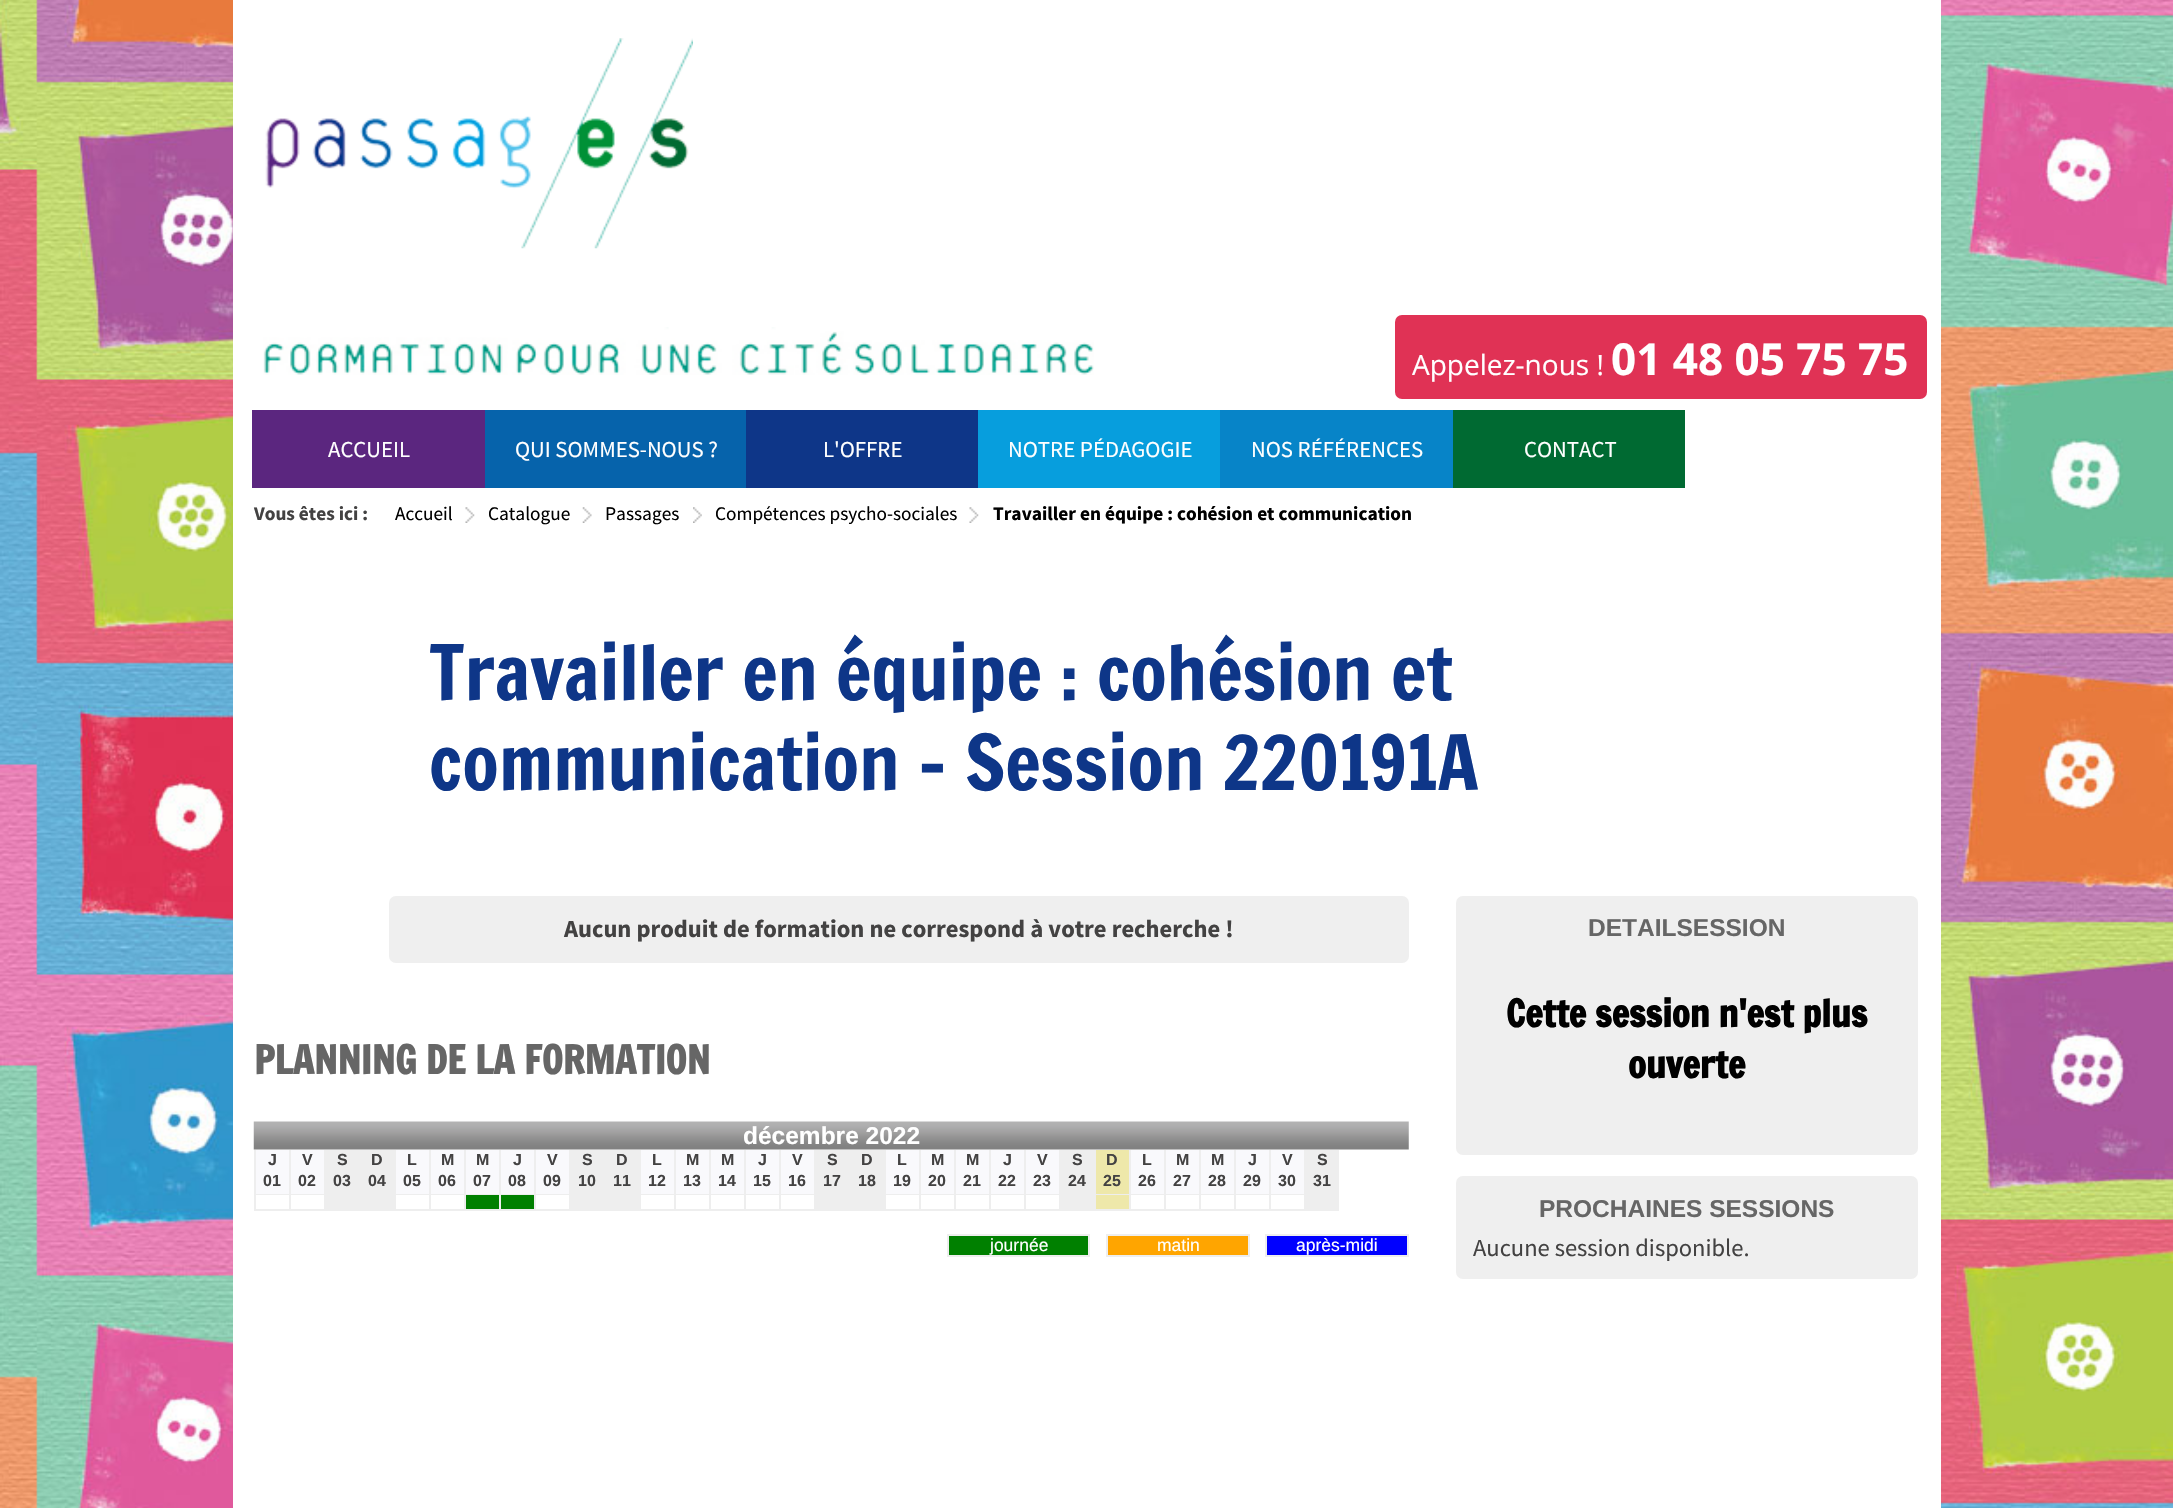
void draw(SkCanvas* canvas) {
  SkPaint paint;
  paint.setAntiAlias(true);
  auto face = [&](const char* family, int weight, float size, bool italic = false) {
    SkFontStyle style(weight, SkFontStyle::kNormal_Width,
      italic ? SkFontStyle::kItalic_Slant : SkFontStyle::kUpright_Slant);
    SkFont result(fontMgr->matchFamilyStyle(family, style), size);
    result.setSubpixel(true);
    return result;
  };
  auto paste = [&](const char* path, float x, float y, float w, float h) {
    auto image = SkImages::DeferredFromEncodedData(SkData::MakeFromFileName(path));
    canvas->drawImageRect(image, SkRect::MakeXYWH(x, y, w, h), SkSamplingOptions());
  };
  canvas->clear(0xffffffff);
  paste("img/1.png", 0, 0, 2173, 1508);
  paint.setColor(0xffffffff);
  canvas->drawRect(SkRect::MakeXYWH(233, 0, 1708, 1508), paint);
  paste("img/2.png", 265, 38, 428, 211);
  paste("img/3.png", 263, 327, 831, 48);
  paint.setColor(0xffe03255);
  canvas->drawRoundRect(SkRect::MakeXYWH(1395, 315, 532, 84), 7, 7, paint);
  {
    const struct { float x, y, w, h; SkColor color; } items[] = {
      {252, 410, 233, 78, 0xff5b267f},
      {485, 410, 261, 78, 0xff0663ab},
      {746, 410, 232, 78, 0xff0e3688},
      {978, 410, 242, 78, 0xff079edd},
      {1220, 410, 233, 78, 0xff0784c8},
      {1453, 410, 232, 78, 0xff006a32},
    };
    for (auto [x, y, w, h, color] : items) {
      paint.setColor(color);
      canvas->drawRect(SkRect::MakeXYWH(x, y, w, h), paint);
    }
  }
  paste("img/4.png", 465, 507, 10, 16);
  paste("img/5.png", 582, 507, 10, 16);
  paste("img/6.png", 693, 507, 9, 16);
  paste("img/4.png", 969, 507, 10, 16);
  paint.setColor(0xffefefef);
  canvas->drawRoundRect(SkRect::MakeXYWH(389, 896, 1020, 67), 7, 7, paint);
  paste("img/7.png", 253, 1121, 1156, 29);
  {
    const struct { float x, y, w, h; SkColor color; } items[] = {
      {256, 1150, 33, 44, 0xfff9f9fc},
      {254, 1194, 70, 1, 0xffeeeeee},
      {254, 1150, 2, 45, 0xffeeeeee},
      {254, 1209, 70, 2, 0xffeeeeee},
      {254, 1195, 2, 16, 0xffeeeeee},
      {291, 1150, 33, 44, 0xfff9f9fc},
      {289, 1150, 2, 61, 0xffeeeeee},
      {324, 1150, 35, 61, 0xffeeeeee},
      {359, 1150, 35, 61, 0xffeeeeee},
      {396, 1150, 33, 44, 0xfff9f9fc},
      {394, 1194, 175, 1, 0xffeeeeee},
      {394, 1150, 2, 45, 0xffeeeeee},
      {394, 1209, 175, 2, 0xffeeeeee},
      {394, 1195, 2, 16, 0xffeeeeee},
      {431, 1150, 33, 44, 0xfff9f9fc},
      {429, 1150, 2, 61, 0xffeeeeee},
      {466, 1150, 33, 44, 0xfff9f9fc},
      {464, 1150, 2, 61, 0xffeeeeee},
      {466, 1195, 33, 14, 0xff008000},
      {501, 1150, 33, 44, 0xfff9f9fc},
      {499, 1150, 2, 61, 0xffeeeeee},
      {501, 1195, 33, 14, 0xff008000},
      {536, 1150, 33, 44, 0xfff9f9fc},
      {534, 1150, 2, 61, 0xffeeeeee},
      {569, 1150, 35, 61, 0xffeeeeee},
      {604, 1150, 35, 61, 0xffeeeeee},
      {641, 1150, 33, 44, 0xfff9f9fc},
      {639, 1194, 175, 1, 0xffeeeeee},
      {639, 1150, 2, 45, 0xffeeeeee},
      {639, 1209, 175, 2, 0xffeeeeee},
      {639, 1195, 2, 16, 0xffeeeeee},
      {676, 1150, 33, 44, 0xfff9f9fc},
      {674, 1150, 2, 61, 0xffeeeeee},
      {711, 1150, 33, 44, 0xfff9f9fc},
      {709, 1150, 2, 61, 0xffeeeeee},
      {746, 1150, 33, 44, 0xfff9f9fc},
      {744, 1150, 2, 61, 0xffeeeeee},
      {781, 1150, 33, 44, 0xfff9f9fc},
      {779, 1150, 2, 61, 0xffeeeeee},
      {814, 1150, 35, 61, 0xffeeeeee},
      {849, 1150, 35, 61, 0xffeeeeee},
      {886, 1150, 33, 44, 0xfff9f9fc},
      {884, 1194, 175, 1, 0xffeeeeee},
      {884, 1150, 2, 45, 0xffeeeeee},
      {884, 1209, 175, 2, 0xffeeeeee},
      {884, 1195, 2, 16, 0xffeeeeee},
      {921, 1150, 33, 44, 0xfff9f9fc},
      {919, 1150, 2, 61, 0xffeeeeee},
      {956, 1150, 33, 44, 0xfff9f9fc},
      {954, 1150, 2, 61, 0xffeeeeee},
      {991, 1150, 33, 44, 0xfff9f9fc},
      {989, 1150, 2, 61, 0xffeeeeee},
      {1026, 1150, 33, 44, 0xfff9f9fc},
      {1024, 1150, 2, 61, 0xffeeeeee},
      {1059, 1150, 35, 61, 0xffeeeeee},
      {1096, 1150, 33, 44, 0xffeee8aa},
      {1094, 1194, 210, 1, 0xffeeeeee},
      {1094, 1150, 2, 45, 0xffeeeeee},
      {1096, 1195, 33, 14, 0xffeee8aa},
      {1094, 1209, 210, 2, 0xffeeeeee},
      {1094, 1195, 2, 16, 0xffeeeeee},
      {1131, 1150, 33, 44, 0xfff9f9fc},
      {1129, 1150, 2, 61, 0xffeeeeee},
      {1166, 1150, 33, 44, 0xfff9f9fc},
      {1164, 1150, 2, 61, 0xffeeeeee},
      {1201, 1150, 33, 44, 0xfff9f9fc},
      {1199, 1150, 2, 61, 0xffeeeeee},
      {1236, 1150, 33, 44, 0xfff9f9fc},
      {1234, 1150, 2, 61, 0xffeeeeee},
      {1271, 1150, 33, 44, 0xfff9f9fc},
      {1269, 1150, 2, 61, 0xffeeeeee},
      {1304, 1150, 35, 61, 0xffeeeeee},
    };
    for (auto [x, y, w, h, color] : items) {
      paint.setColor(color);
      canvas->drawRect(SkRect::MakeXYWH(x, y, w, h), paint);
    }
  }
  paint.setColor(0xff008000);
  canvas->drawRect(SkRect::MakeXYWH(948, 1235, 141, 21), paint);
  paint.setStroke(true);
  paint.setStrokeWidth(2);
  paint.setColor(0xffeeeeee);
  canvas->drawRect(SkRect::MakeXYWH(948, 1235, 141, 21), paint);
  paint.setStroke(false);
  paint.setColor(0xffffa500);
  canvas->drawRect(SkRect::MakeXYWH(1107, 1235, 142, 21), paint);
  paint.setStroke(true);
  paint.setColor(0xffeeeeee);
  canvas->drawRect(SkRect::MakeXYWH(1107, 1235, 142, 21), paint);
  paint.setStroke(false);
  paint.setColor(0xff0000ff);
  canvas->drawRect(SkRect::MakeXYWH(1266, 1235, 142, 21), paint);
  paint.setStroke(true);
  paint.setColor(0xffeeeeee);
  canvas->drawRect(SkRect::MakeXYWH(1266, 1235, 142, 21), paint);
  paint.setStroke(false);
  paint.setColor(0xffefefef);
  canvas->drawRoundRect(SkRect::MakeXYWH(1456, 896, 462, 259), 7, 7, paint);
  canvas->drawRoundRect(SkRect::MakeXYWH(1456, 1176, 462, 103), 7, 7, paint);
  auto f0 = face("Open Sans", 400, 28);
  paint.setColor(0xffffffff);
  canvas->drawString("Appelez-nous !", 1412, 375, f0, paint);
  auto f1 = face("Open Sans", 700, 44);
  canvas->drawString("01 48 05 75 75", 1611, 375, f1, paint);
  auto f2 = face("Source Sans Pro", 400, 22.75f);
  {
    const struct { const char* s; float x, y; } items[] = {
      {"ACCUEIL", 328, 457},
      {"QUI SOMMES-NOUS ?", 515, 457},
      {"L'OFFRE", 823, 457},
      {"NOTRE PÉDAGOGIE", 1008, 457},
      {"NOS RÉFÉRENCES", 1251, 457},
      {"CONTACT", 1524, 457},
    };
    for (auto [s, x, y] : items) {
      canvas->drawString(s, x, y, f2, paint);
    }
  }
  auto f3 = face("Source Sans Pro", 700, 19.25f);
  paint.setColor(0xff434242);
  canvas->drawString("Vous êtes ici :", 254, 520, f3, paint);
  auto f4 = face("Source Sans Pro", 400, 19.25f);
  paint.setColor(0xff000000);
  {
    const struct { const char* s; float x, y; } items[] = {
      {"Accueil", 395, 520},
      {"Catalogue", 488, 520},
      {"Passages", 605, 520},
      {"Compétences psycho-sociales", 715, 520},
    };
    for (auto [s, x, y] : items) {
      canvas->drawString(s, x, y, f4, paint);
    }
  }
  canvas->drawString("Travailler en équipe : cohésion et communication", 993, 520, f3, paint);
  auto f5 = face("Francois One", 400, 74.75f);
  paint.setColor(0xff0e3688);
  canvas->drawString("Travailler en équipe : cohésion et", 429, 700, f5, paint);
  canvas->drawString("communication - Session 220191A", 429, 790, f5, paint);
  auto f6 = face("Source Sans Pro", 700, 24.5f);
  paint.setColor(0xff434242);
  canvas->drawString("Aucun produit de formation ne correspond à votre recherche !", 564, 937, f6, paint);
  auto f7 = face("Francois One", 700, 38.5f);
  paint.setColor(0xff666666);
  canvas->drawString("PLANNING DE LA FORMATION", 254, 1074, f7, paint);
  auto f8 = face("Liberation Sans", 700, 24.5f);
  paint.setColor(0xffffffff);
  canvas->drawString("décembre 2022", 743, 1144, f8, paint);
  auto f9 = face("Liberation Sans", 700, 16);
  paint.setColor(0xff434242);
  {
    const struct { const char* s; float x, y; } items[] = {
      {"J", 268, 1165},
      {"01", 263, 1186},
      {"V", 302, 1165},
      {"02", 298, 1186},
      {"S", 337, 1165},
      {"03", 333, 1186},
      {"D", 371, 1165},
      {"04", 368, 1186},
      {"L", 407, 1165},
      {"05", 403, 1186},
      {"M", 441, 1165},
      {"06", 438, 1186},
      {"M", 476, 1165},
      {"07", 473, 1186},
      {"J", 513, 1165},
      {"08", 508, 1186},
      {"V", 547, 1165},
      {"09", 543, 1186},
      {"S", 582, 1165},
      {"10", 578, 1186},
      {"D", 616, 1165},
      {"11", 613, 1186},
      {"L", 652, 1165},
      {"12", 648, 1186},
      {"M", 686, 1165},
      {"13", 683, 1186},
      {"M", 721, 1165},
      {"14", 718, 1186},
      {"J", 758, 1165},
      {"15", 753, 1186},
      {"V", 792, 1165},
      {"16", 788, 1186},
      {"S", 827, 1165},
      {"17", 823, 1186},
      {"D", 861, 1165},
      {"18", 858, 1186},
      {"L", 897, 1165},
      {"19", 893, 1186},
      {"M", 931, 1165},
      {"20", 928, 1186},
      {"M", 966, 1165},
      {"21", 963, 1186},
      {"J", 1003, 1165},
      {"22", 998, 1186},
      {"V", 1037, 1165},
      {"23", 1033, 1186},
      {"S", 1072, 1165},
      {"24", 1068, 1186},
      {"D", 1106, 1165},
      {"25", 1103, 1186},
      {"L", 1142, 1165},
      {"26", 1138, 1186},
      {"M", 1176, 1165},
      {"27", 1173, 1186},
      {"M", 1211, 1165},
      {"28", 1208, 1186},
      {"J", 1248, 1165},
      {"29", 1243, 1186},
      {"V", 1282, 1165},
      {"30", 1278, 1186},
      {"S", 1317, 1165},
      {"31", 1313, 1186},
    };
    for (auto [s, x, y] : items) {
      canvas->drawString(s, x, y, f9, paint);
    }
  }
  auto f10 = face("Liberation Sans", 400, 17.5f);
  paint.setColor(0xffffffff);
  {
    const struct { const char* s; float x, y; } items[] = {
      {"journée", 990, 1251},
      {"matin", 1157, 1251},
      {"après-midi", 1296, 1251},
    };
    for (auto [s, x, y] : items) {
      canvas->drawString(s, x, y, f10, paint);
    }
  }
  paint.setColor(0xff666666);
  canvas->drawString("DETAILSESSION", 1588, 936, f8, paint);
  auto f11 = face("Francois One", 700, 36.75f);
  paint.setColor(0xff000000);
  canvas->drawString("Cette session n'est plus", 1506, 1027, f11, paint);
  canvas->drawString("ouverte", 1628, 1078, f11, paint);
  paint.setColor(0xff666666);
  canvas->drawString("PROCHAINES SESSIONS", 1539, 1217, f8, paint);
  auto f12 = face("Source Sans Pro", 400, 24.5f);
  paint.setColor(0xff434242);
  canvas->drawString("Aucune session disponible.", 1473, 1256, f12, paint);
}
